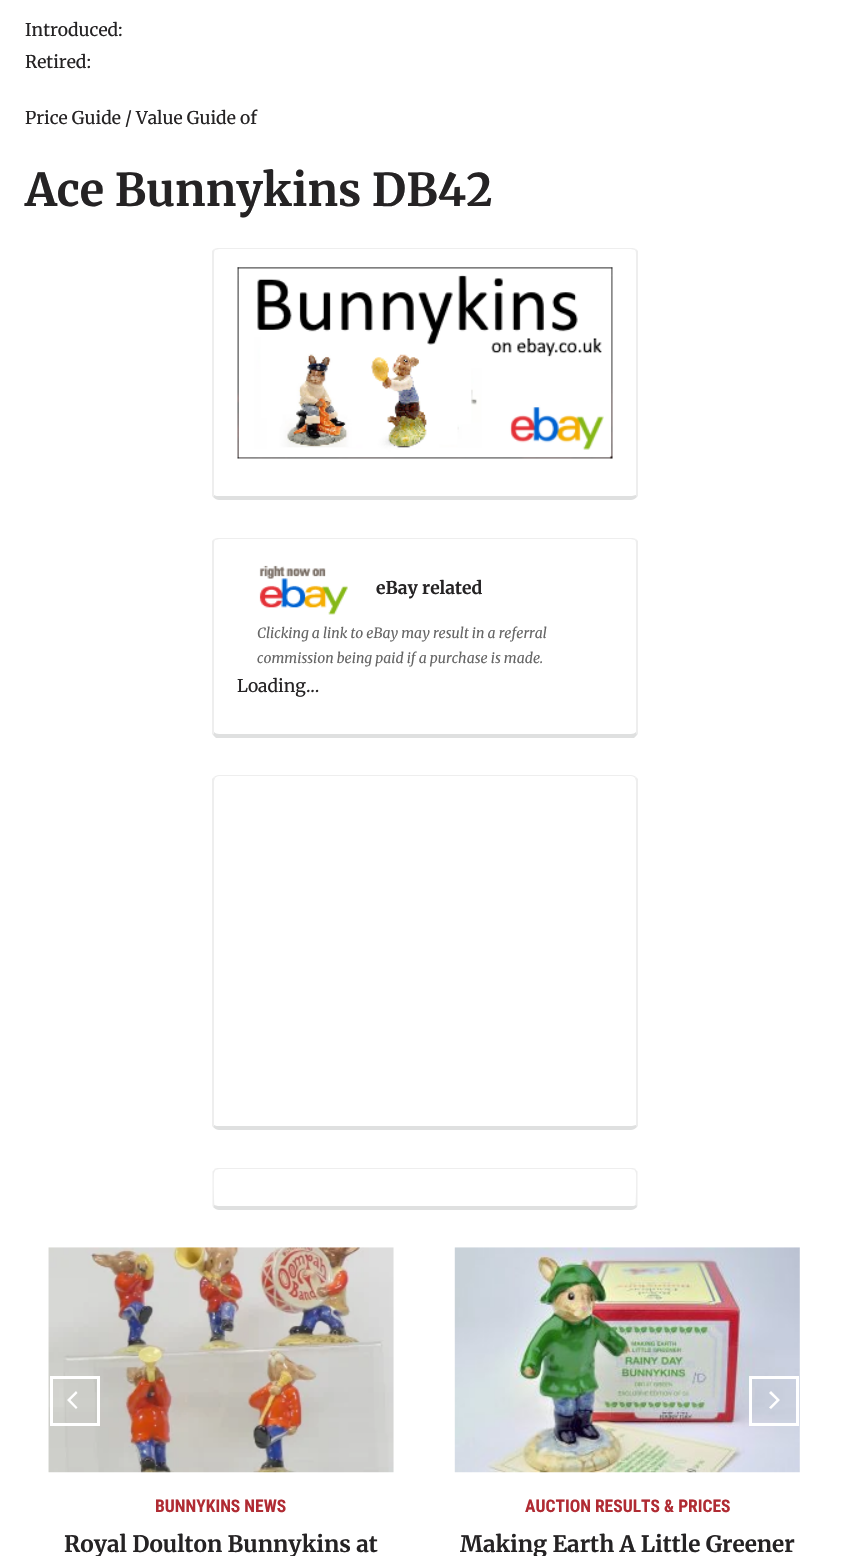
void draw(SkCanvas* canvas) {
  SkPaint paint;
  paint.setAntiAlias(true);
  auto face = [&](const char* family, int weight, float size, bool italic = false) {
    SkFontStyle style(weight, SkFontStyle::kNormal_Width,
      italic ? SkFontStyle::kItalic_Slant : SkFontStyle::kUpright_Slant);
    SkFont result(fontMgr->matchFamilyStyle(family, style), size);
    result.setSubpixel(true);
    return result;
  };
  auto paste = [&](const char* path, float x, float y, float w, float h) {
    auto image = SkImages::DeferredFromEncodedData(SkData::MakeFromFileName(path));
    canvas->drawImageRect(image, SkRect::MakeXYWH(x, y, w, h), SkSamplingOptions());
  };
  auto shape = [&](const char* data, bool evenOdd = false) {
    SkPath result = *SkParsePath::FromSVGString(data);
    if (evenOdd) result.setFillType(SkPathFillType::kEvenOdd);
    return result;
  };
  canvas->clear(0xffffffff);
  paint.setColor(0xffeeeeee);
  canvas->drawPath(shape("M219 248C217 248 216 248 214 249L215 250C216 250 218 249 219 249H631C632 249 634 250 635 250L636 249C634 248 633 248 631 248Z"), paint);
  canvas->drawPath(shape("M636 249L638 251V496L637 497L636 495V254C636 253 636 251 635 250Z"), paint);
  paint.setColor(0xffdfe0e0);
  canvas->drawPath(shape("M219 500H631C633 500 635 499 637 497L636 495L632 496H219C218 496 215 496 214 495L213 497C215 499 217 500 219 500Z"), paint);
  paint.setColor(0xffeeeeee);
  canvas->drawPath(shape("M212 251L214 249L215 250C214 251 214 253 214 254V495L213 497L212 496Z"), paint);
  paste("img/1.png", 237, 267, 376, 192);
  canvas->drawPath(shape("M219 538C217 538 216 538 214 539L215 540C216 540 218 539 219 539H631C632 539 634 540 635 540L636 539C634 538 633 538 631 538Z"), paint);
  canvas->drawPath(shape("M636 539L638 541V734L637 735L636 732V544C636 543 636 541 635 540Z"), paint);
  paint.setColor(0xffdfe0e0);
  canvas->drawPath(shape("M216 738L213 735L214 732C215 733 217 734 219 734H631C633 734 635 733 636 732L637 735L634 738Z"), paint);
  paint.setColor(0xffeeeeee);
  canvas->drawPath(shape("M212 541L214 539L215 540C214 541 214 543 214 544V732L213 735L212 734Z"), paint);
  paste("img/2.png", 259, 565, 89, 50);
  canvas->drawPath(shape("M219 775C217 775 215 776 214 777L215 778C216 777 217 776 219 776H631C633 776 634 777 635 778L636 777C635 776 633 775 631 775Z"), paint);
  canvas->drawPath(shape("M638 1126L637 1127L636 1125V781L635 778L636 777L638 779Z"), paint);
  paint.setColor(0xffdfe0e0);
  canvas->drawPath(shape("M219 1130H631C633 1130 635 1129 637 1127L636 1125L632 1126H219C218 1126 215 1126 214 1125L213 1127C215 1129 217 1130 219 1130Z"), paint);
  paint.setColor(0xffeeeeee);
  canvas->drawPath(shape("M212 779L214 777L215 778L214 781V1125L213 1127L212 1126Z"), paint);
  canvas->drawPath(shape("M219 1168C217 1168 216 1168 214 1169L215 1170C216 1170 218 1169 219 1169H631C632 1169 634 1170 635 1170L636 1169C634 1168 633 1168 631 1168Z"), paint);
  canvas->drawPath(shape("M635.5 1169.5L637.5 1171.5V1206L636.5 1207.5L635.5 1204.5C636 1204 636.5 1175.5 636 1173C635.5 1172 635.5 1171 634.5 1170.5Z"), paint);
  paint.setColor(0xffdfe0e0);
  canvas->drawPath(shape("M219 1210H631C633 1210 635 1209 637 1207L636 1205C635 1206 632 1206 631 1206H218L214 1205L213 1207C215 1209 217 1210 219 1210Z"), paint);
  paint.setColor(0xffeeeeee);
  canvas->drawPath(shape("M212.5 1171.5L214.5 1169.5L215.5 1170.5C214.5 1171 214.5 1172 214 1173C213.5 1175.5 214 1204 214.5 1204.5L213.5 1207.5L212.5 1206Z"), paint);
  paste("img/3.png", 48, 1247, 346, 226);
  paint.setStroke(true);
  paint.setStrokeWidth(3);
  paint.setColor(0xffffffff);
  canvas->drawRect(SkRect::MakeXYWH(51.5f, 1377.5f, 47, 47), paint);
  paint.setStroke(false);
  canvas->drawPath(shape("M67 1400L76 1409L77.5 1407.5L70.5 1400L77.5 1393L76 1391Z"), paint);
  paste("img/4.png", 454, 1247, 346, 226);
  paint.setStroke(true);
  canvas->drawRect(SkRect::MakeXYWH(750.5f, 1377.5f, 47, 47), paint);
  paint.setStroke(false);
  canvas->drawPath(shape("M780 1400L771 1391L769 1393L776.5 1400L769 1407.5L771 1409Z"), paint);
  auto f0 = face("Merriweather", 400, 17.5f);
  paint.setColor(0xff252324);
  {
    const struct { const char* s; float x, y; } items[] = {
      {"Introduced:", 25, 36},
      {"Retired:", 25, 68},
      {"Price Guide / Value Guide of", 25, 124},
    };
    for (auto [s, x, y] : items) {
      canvas->drawString(s, x, y, f0, paint);
    }
  }
  auto f1 = face("Merriweather", 700, 45);
  canvas->drawString("Ace Bunnykins DB42", 25, 206, f1, paint);
  auto f2 = face("Merriweather", 700, 17.5f);
  canvas->drawString("eBay related", 376, 594, f2, paint);
  auto f3 = face("Merriweather", 400, 14, true);
  paint.setColor(0xff666666);
  canvas->drawString("Clicking a link to eBay may result in a referral", 257, 638, f3, paint);
  canvas->drawString("commission being paid if a purchase is made.", 257, 663, f3, paint);
  paint.setColor(0xff252324);
  canvas->drawString("Loading...", 237, 692, f0, paint);
  auto f4 = face("Roboto Condensed", 700, 17.5f);
  paint.setColor(0xffb02b33);
  canvas->drawString("BUNNYKINS NEWS", 155, 1512, f4, paint);
  auto f5 = face("Merriweather", 700, 22.5f);
  paint.setColor(0xff252324);
  canvas->drawString("Royal Doulton Bunnykins at", 64, 1552, f5, paint);
  paint.setColor(0xffb02b33);
  canvas->drawString("AUCTION RESULTS & PRICES", 525, 1512, f4, paint);
  paint.setColor(0xff252324);
  canvas->drawString("Making Earth A Little Greener", 460, 1552, f5, paint);
}
